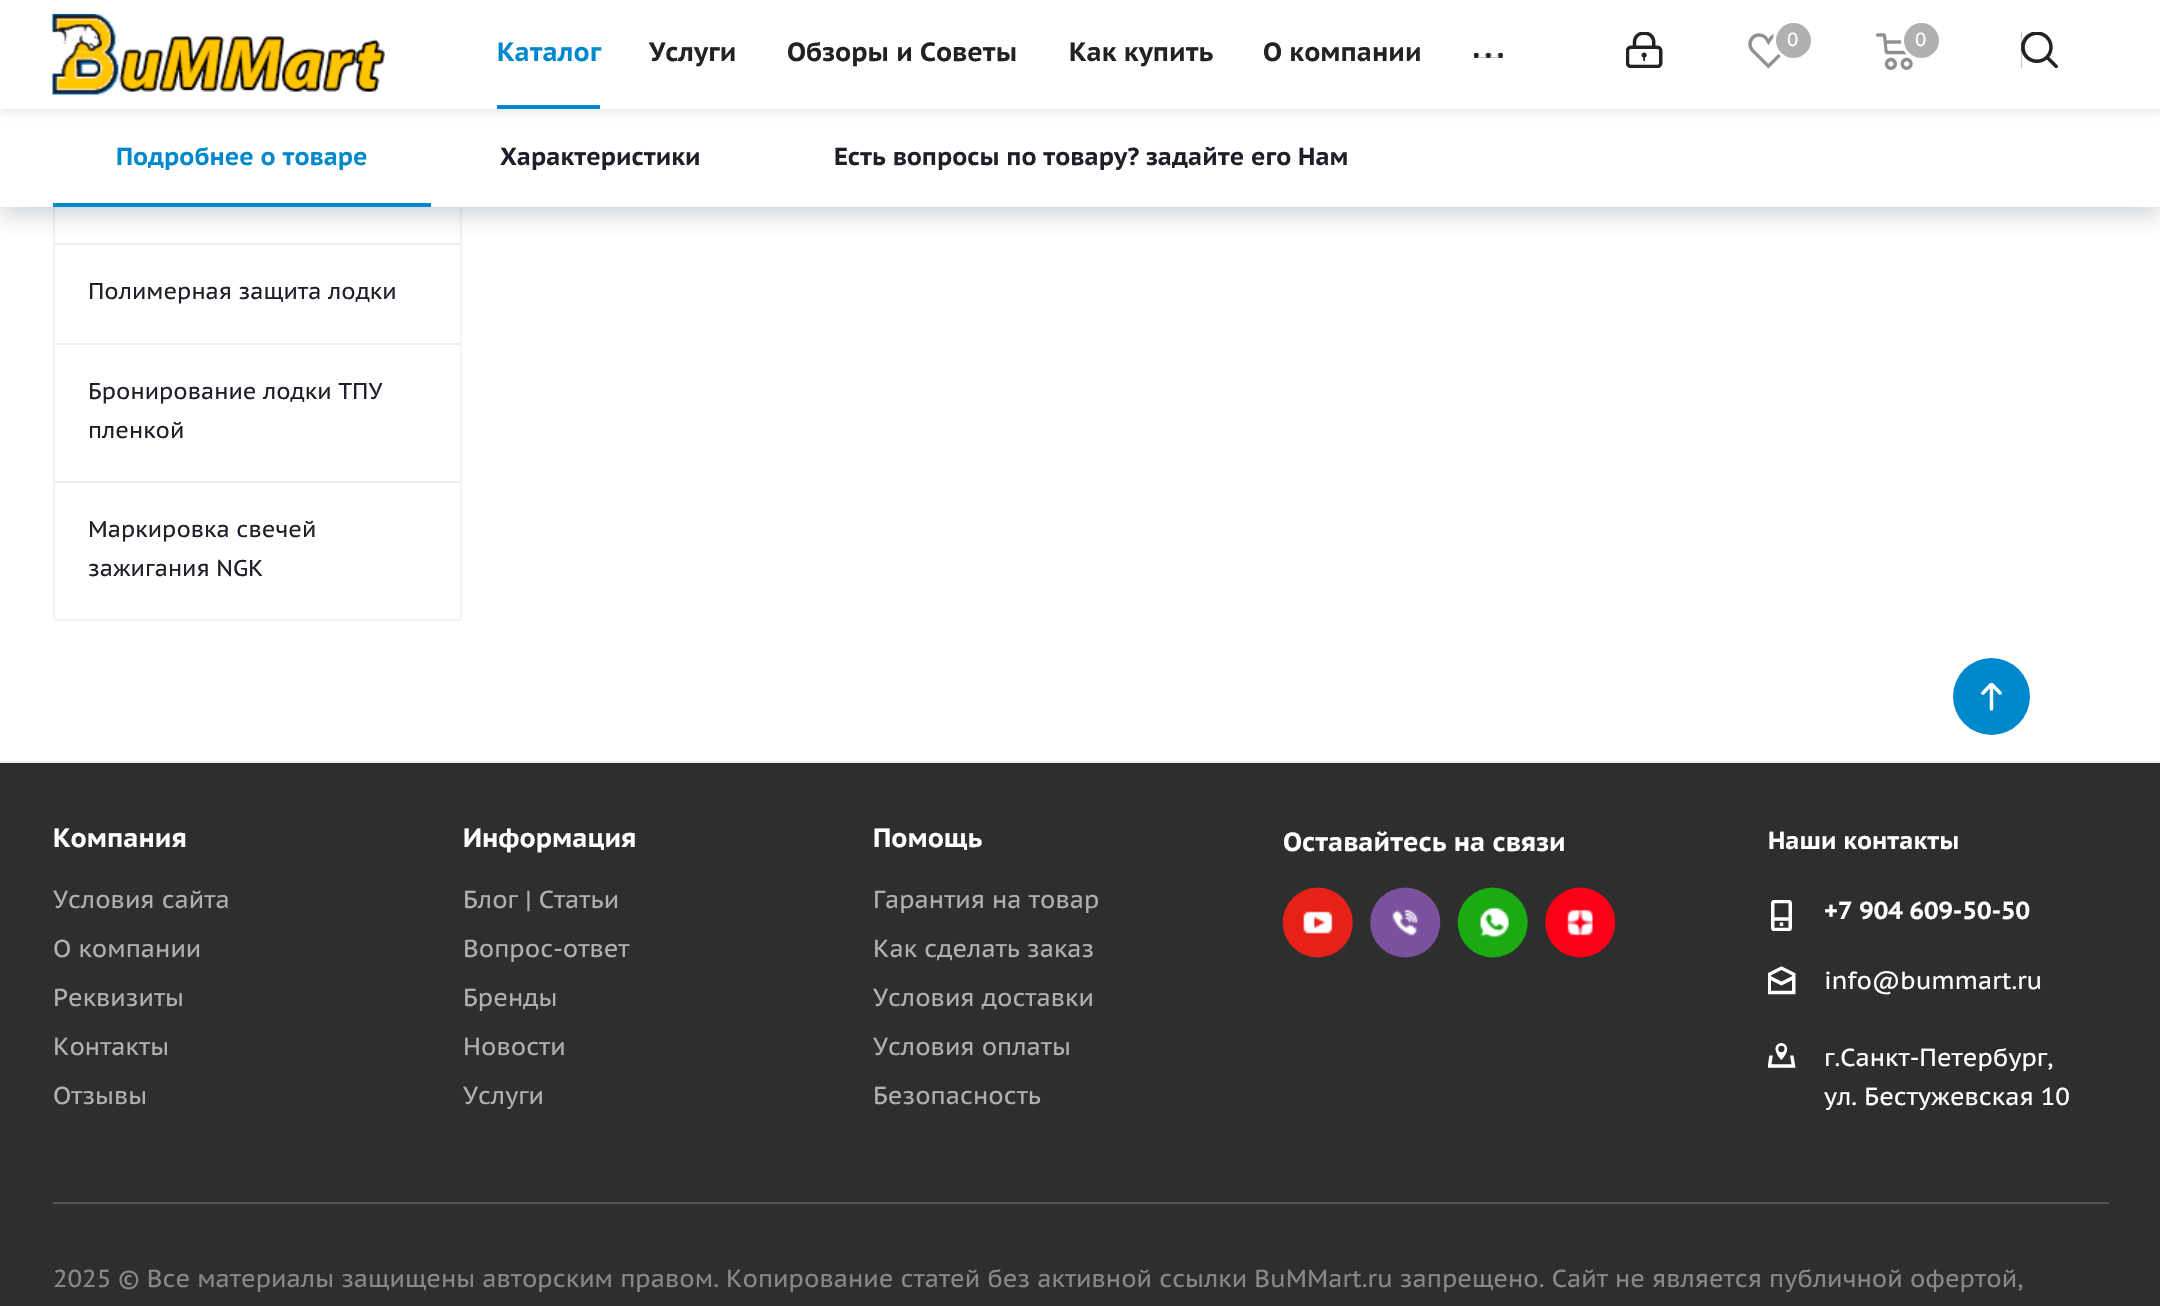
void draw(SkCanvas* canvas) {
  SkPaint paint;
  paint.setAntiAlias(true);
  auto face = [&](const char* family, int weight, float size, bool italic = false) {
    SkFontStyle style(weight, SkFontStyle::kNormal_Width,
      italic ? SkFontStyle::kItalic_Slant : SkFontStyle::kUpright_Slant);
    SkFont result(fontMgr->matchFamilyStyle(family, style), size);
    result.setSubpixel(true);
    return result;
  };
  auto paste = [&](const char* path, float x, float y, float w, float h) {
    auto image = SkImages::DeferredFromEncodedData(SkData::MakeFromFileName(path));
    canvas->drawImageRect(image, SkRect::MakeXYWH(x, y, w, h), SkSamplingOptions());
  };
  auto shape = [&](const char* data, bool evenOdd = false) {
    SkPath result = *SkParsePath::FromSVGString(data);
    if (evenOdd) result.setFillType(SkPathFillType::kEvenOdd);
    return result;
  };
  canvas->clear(0xffffffff);
  paint.setStroke(true);
  paint.setStrokeWidth(2);
  paint.setColor(0xfff2f2f2);
  canvas->drawRoundRect(SkRect::MakeXYWH(54, -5, 407, 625), 3, 3, paint);
  paint.setStroke(false);
  paint.setColor(0xffebeef1);
  canvas->drawRect(SkRect::MakeXYWH(54, 243, 406, 2), paint);
  paint.setColor(0x3b20364a);
  paint.setMaskFilter(SkMaskFilter::MakeBlur(kNormal_SkBlurStyle, 12));
  canvas->drawRect(SkRect::MakeXYWH(0, 116, 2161, 98), paint);
  paint.setMaskFilter(nullptr);
  paint.setColor(0xffffffff);
  canvas->drawRect(SkRect::MakeXYWH(0, 109, 2160, 98), paint);
  paint.setColor(0x24000000);
  paint.setMaskFilter(SkMaskFilter::MakeBlur(kNormal_SkBlurStyle, 4.5f));
  canvas->drawRect(SkRect::MakeXYWH(0, 2, 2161, 108), paint);
  paint.setMaskFilter(nullptr);
  paint.setColor(0xffffffff);
  canvas->drawRect(SkRect::MakeXYWH(0, 0, 2160, 109), paint);
  paste("img/1.png", 52, 14, 333, 81);
  paint.setColor(0xff0088cc);
  canvas->drawRect(SkRect::MakeXYWH(497, 105, 103, 4), paint);
  paint.setColor(0xff222222);
  canvas->drawRect(SkRect::MakeXYWH(1474, 53, 29, 5), paint);
  paste("img/2.png", 1474, 53, 29, 5);
  paste("img/3.png", 1626, 32, 37, 36);
  paste("img/4.png", 1748, 33, 33, 36);
  paint.setStroke(true);
  paint.setStrokeWidth(4);
  paint.setColor(0xffffffff);
  canvas->drawCircle(1794, 40, 19, paint);
  paint.setStroke(false);
  paint.setColor(0xffb0b0b0);
  canvas->drawCircle(1793.5f, 40.5f, 17.5f, paint);
  paste("img/5.png", 1876, 33, 37, 37);
  paint.setStroke(true);
  paint.setColor(0xffffffff);
  canvas->drawCircle(1922, 40, 19, paint);
  paint.setStroke(false);
  paint.setColor(0xffb0b0b0);
  canvas->drawCircle(1921.5f, 40.5f, 17.5f, paint);
  paint.setColor(0xff222222);
  canvas->drawRect(SkRect::MakeXYWH(2021, 32, 37, 36), paint);
  paste("img/6.png", 2021, 32, 37, 36);
  {
    const struct { float x, y, w, h; SkColor color; } items[] = {
      {53, 203, 378, 4, 0xff0088cc},
      {54, 343, 406, 2, 0xffebeef1},
      {54, 481, 406, 2, 0xffebeef1},
    };
    for (auto [x, y, w, h, color] : items) {
      paint.setColor(color);
      canvas->drawRect(SkRect::MakeXYWH(x, y, w, h), paint);
    }
  }
  paint.setColor(0xff0088cc);
  canvas->drawCircle(1991.5f, 696.5f, 38.5f, paint);
  canvas->save();
  canvas->clipRect(SkRect::MakeXYWH(1981, 683, 21, 175));
  paint.setStroke(true);
  paint.setStrokeWidth(3.5f);
  paint.setStrokeCap(SkPaint::kRound_Cap);
  paint.setStrokeJoin(SkPaint::kRound_Join);
  paint.setColor(0xffffffff);
  canvas->drawPath(shape("M1991.5 684V709M1983 693L1991.5 684L2000 693"), paint);
  canvas->restore();
  paint.setStroke(false);
  paint.setColor(0xffeeeeee);
  canvas->drawRect(SkRect::MakeXYWH(0, 761, 2160, 2), paint);
  paint.setColor(0xff2e2e2f);
  canvas->drawRect(SkRect::MakeXYWH(0, 763, 2160, 543), paint);
  paste("img/7.png", 1282, 887, 71, 71);
  paste("img/8.png", 1370, 887, 71, 71);
  paste("img/9.png", 1457, 887, 71, 71);
  paste("img/10.png", 1545, 887, 71, 71);
  paste("img/11.png", 1771, 900, 21, 31);
  paste("img/12.png", 1768, 966, 28, 29);
  paste("img/13.png", 1768, 1043, 28, 25);
  paint.setColor(0xff555555);
  canvas->drawRect(SkRect::MakeXYWH(53, 1202, 2056, 2), paint);
  auto f0 = face("PT Sans Caption", 700, 26.25f);
  paint.setColor(0xff0088cc);
  canvas->drawString("Каталог", 497, 61, f0, paint);
  paint.setColor(0xff222222);
  {
    const struct { const char* s; float x, y; } items[] = {
      {"Услуги", 649, 61},
      {"Обзоры и Советы", 787, 61},
      {"Как купить", 1069, 61},
      {"О компании", 1263, 61},
    };
    for (auto [s, x, y] : items) {
      canvas->drawString(s, x, y, f0, paint);
    }
  }
  auto f1 = face("PT Sans Caption", 400, 19);
  paint.setColor(0xffffffff);
  canvas->drawString("0", 1787, 46, f1, paint);
  canvas->drawString("0", 1915, 46, f1, paint);
  auto f2 = face("PT Sans Caption", 700, 24.5f);
  paint.setColor(0xff0088cc);
  canvas->drawString("Подробнее о товаре", 116, 165, f2, paint);
  paint.setColor(0xff1d2029);
  canvas->drawString("Характеристики", 500, 165, f2, paint);
  canvas->drawString("Есть вопросы по товару? задайте его Нам", 834, 165, f2, paint);
  auto f3 = face("PT Sans Caption", 400, 22.75f);
  {
    const struct { const char* s; float x, y; } items[] = {
      {"Полимерная защита лодки", 88, 299},
      {"Бронирование лодки ТПУ", 88, 399},
      {"пленкой", 88, 438},
      {"Маркировка свечей", 88, 537},
      {"зажигания NGK", 88, 576},
    };
    for (auto [s, x, y] : items) {
      canvas->drawString(s, x, y, f3, paint);
    }
  }
  paint.setColor(0xffffffff);
  canvas->drawString("Компания", 53, 847, f0, paint);
  auto f4 = face("PT Sans Caption", 400, 24.5f);
  paint.setColor(0xffb0b0b0);
  {
    const struct { const char* s; float x, y; } items[] = {
      {"Условия сайта", 53, 908},
      {"О компании", 53, 957},
      {"Реквизиты", 53, 1006},
      {"Контакты", 53, 1055},
      {"Отзывы", 53, 1104},
    };
    for (auto [s, x, y] : items) {
      canvas->drawString(s, x, y, f4, paint);
    }
  }
  paint.setColor(0xffffffff);
  canvas->drawString("Информация", 463, 847, f0, paint);
  paint.setColor(0xffb0b0b0);
  {
    const struct { const char* s; float x, y; } items[] = {
      {"Блог | Статьи", 463, 908},
      {"Вопрос-ответ", 463, 957},
      {"Бренды", 463, 1006},
      {"Новости", 463, 1055},
      {"Услуги", 463, 1104},
    };
    for (auto [s, x, y] : items) {
      canvas->drawString(s, x, y, f4, paint);
    }
  }
  paint.setColor(0xffffffff);
  canvas->drawString("Помощь", 873, 847, f0, paint);
  paint.setColor(0xffb0b0b0);
  {
    const struct { const char* s; float x, y; } items[] = {
      {"Гарантия на товар", 873, 908},
      {"Как сделать заказ", 873, 957},
      {"Условия доставки", 873, 1006},
      {"Условия оплаты", 873, 1055},
      {"Безопасность", 873, 1104},
    };
    for (auto [s, x, y] : items) {
      canvas->drawString(s, x, y, f4, paint);
    }
  }
  paint.setColor(0xffffffff);
  canvas->drawString("Оставайтесь на связи", 1283, 851, f0, paint);
  canvas->drawString("Наши контакты", 1768, 849, f2, paint);
  canvas->drawString("+7 904 609-50-50", 1824, 919, f2, paint);
  {
    const struct { const char* s; float x, y; } items[] = {
      {"info@bummart.ru", 1824, 989},
      {"г.Санкт-Петербург,", 1824, 1066},
      {"ул. Бестужевская 10", 1824, 1105},
    };
    for (auto [s, x, y] : items) {
      canvas->drawString(s, x, y, f4, paint);
    }
  }
  paint.setColor(0xff888888);
  canvas->drawString("2025 © Все материалы защищены авторским правом. Копирование статей без активной ссылки BuMMart.ru запрещено. Сайт не является публичной офертой,", 53, 1287, f4, paint);
}
